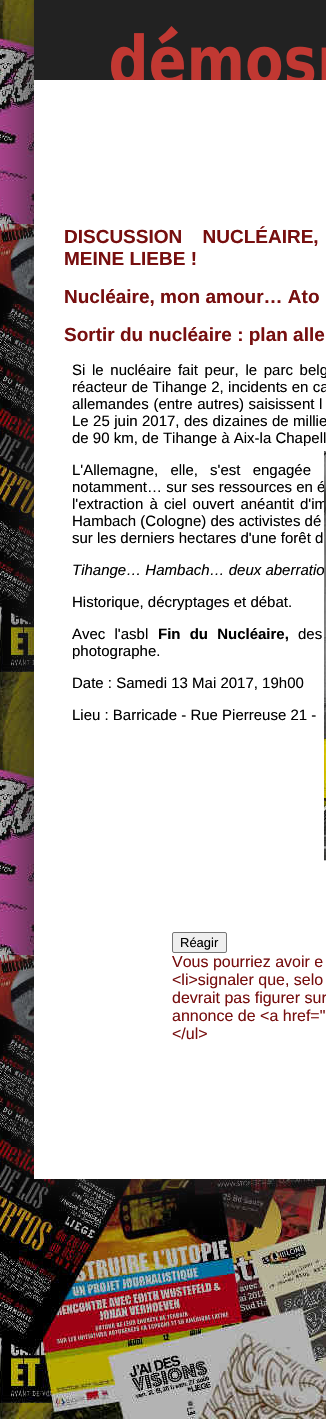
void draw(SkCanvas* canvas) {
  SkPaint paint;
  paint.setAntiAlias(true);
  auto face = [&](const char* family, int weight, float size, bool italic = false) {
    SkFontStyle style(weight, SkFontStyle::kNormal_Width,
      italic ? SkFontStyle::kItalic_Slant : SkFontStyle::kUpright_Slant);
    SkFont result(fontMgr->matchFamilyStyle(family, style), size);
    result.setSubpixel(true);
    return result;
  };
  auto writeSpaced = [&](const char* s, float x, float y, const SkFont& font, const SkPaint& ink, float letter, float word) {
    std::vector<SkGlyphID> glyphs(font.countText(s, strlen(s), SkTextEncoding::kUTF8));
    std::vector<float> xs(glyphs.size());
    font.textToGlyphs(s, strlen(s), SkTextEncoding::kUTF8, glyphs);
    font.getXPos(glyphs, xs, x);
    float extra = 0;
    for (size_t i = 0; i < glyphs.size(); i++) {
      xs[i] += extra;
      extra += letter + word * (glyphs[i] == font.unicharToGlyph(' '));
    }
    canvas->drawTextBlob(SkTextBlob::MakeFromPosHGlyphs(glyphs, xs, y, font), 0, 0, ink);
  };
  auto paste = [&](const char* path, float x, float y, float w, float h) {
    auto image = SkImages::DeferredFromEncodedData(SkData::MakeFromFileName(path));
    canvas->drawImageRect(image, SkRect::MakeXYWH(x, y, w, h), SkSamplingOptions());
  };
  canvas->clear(0xffffffff);
  paste("img/1.png", 0, 0, 326, 1419);
  paint.setColor(0xff222222);
  paint.setMaskFilter(SkMaskFilter::MakeBlur(kNormal_SkBlurStyle, 25));
  canvas->drawRect(SkRect::MakeXYWH(34, 0, 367, 1179), paint);
  paint.setMaskFilter(nullptr);
  paint.setColor(0xffffffff);
  canvas->drawRect(SkRect::MakeXYWH(34, 80, 292, 1099), paint);
  paint.setColor(0xff222222);
  canvas->drawRect(SkRect::MakeXYWH(34, 0, 292, 80), paint);
  paste("img/2.png", 111, 26, 215, 54);
  paint.setColor(0xffefefef);
  canvas->drawRoundRect(SkRect::MakeXYWH(172.5f, 932.5f, 54, 20), 1.5f, 1.5f, paint);
  paint.setStroke(true);
  paint.setStrokeWidth(1);
  paint.setColor(0xff767676);
  canvas->drawRoundRect(SkRect::MakeXYWH(172.5f, 932.5f, 54, 20), 1.5f, 1.5f, paint);
  auto f0 = face("Liberation Sans", 700, 19);
  paint.setStroke(false);
  paint.setColor(0xff770f0f);
  writeSpaced("DISCUSSION NUCLÉAIRE,", 64, 243, f0, paint, 0, 15);
  {
    const struct { const char* s; float x, y; } items[] = {
      {"MEINE LIEBE !", 64, 265},
      {"Nucléaire, mon amour… Ato", 64, 303},
      {"Sortir du nucléaire : plan alle", 64, 341},
    };
    for (auto [s, x, y] : items) {
      canvas->drawString(s, x, y, f0, paint);
    }
  }
  auto f1 = face("Liberation Sans", 400, 15);
  paint.setColor(0xff000000);
  writeSpaced("Si le nucléaire fait peur, le parc belg", 72, 375, f1, paint, 0, 2.5f);
  writeSpaced("réacteur de Tihange 2, incidents en ca", 72, 392, f1, paint, 0, 0.25f);
  writeSpaced("allemandes (entre autres) saisissent l", 72, 409, f1, paint, 0, 0.5f);
  writeSpaced("Le 25 juin 2017, des dizaines de millie", 72, 426, f1, paint, 0, 0.25f);
  canvas->drawString("de 90 km, de Tihange à Aix-la Chapell", 72, 443, f1, paint);
  writeSpaced("L'Allemagne, elle, s'est engagée", 72, 475, f1, paint, 0, 8);
  canvas->drawString("notamment… sur ses ressources en é", 72, 492, f1, paint);
  writeSpaced("l'extraction à ciel ouvert anéantit d'im", 72, 509, f1, paint, 0, 2);
  canvas->drawString("Hambach (Cologne) des activistes dé", 72, 526, f1, paint);
  canvas->drawString("sur les derniers hectares d'une forêt d", 72, 543, f1, paint);
  auto f2 = face("Liberation Sans", 400, 15, true);
  canvas->drawString("Tihange… Hambach… deux aberratio", 72, 575, f2, paint);
  paste("img/3.png", 324, 451, 2, 410);
  canvas->drawString("Historique, décryptages et débat.", 72, 607, f1, paint);
  writeSpaced("Avec l'asbl", 72, 639, f1, paint, 0, 5);
  auto f3 = face("Liberation Sans", 700, 15);
  writeSpaced("Fin du Nucléaire,", 158, 639, f3, paint, 0, 5);
  {
    const struct { const char* s; float x, y; } items[] = {
      {"des", 298, 639},
      {"photographe.", 72, 656},
      {"Date : Samedi 13 Mai 2017, 19h00", 72, 688},
      {"Lieu : Barricade - Rue Pierreuse 21 -", 72, 720},
    };
    for (auto [s, x, y] : items) {
      canvas->drawString(s, x, y, f1, paint);
    }
  }
  auto f4 = face("Liberation Sans", 400, 13);
  canvas->drawString("Réagir", 180, 947, f4, paint);
  auto f5 = face("Liberation Sans", 400, 16);
  paint.setColor(0xff770f0f);
  {
    const struct { const char* s; float x, y; } items[] = {
      {"Vous pourriez avoir e", 172, 967},
      {"<li>signaler que, selo", 172, 985},
      {"devrait pas figurer sur", 172, 1003},
      {"annonce de <a href=\"", 172, 1021},
      {"</ul>", 172, 1039},
    };
    for (auto [s, x, y] : items) {
      canvas->drawString(s, x, y, f5, paint);
    }
  }
}
